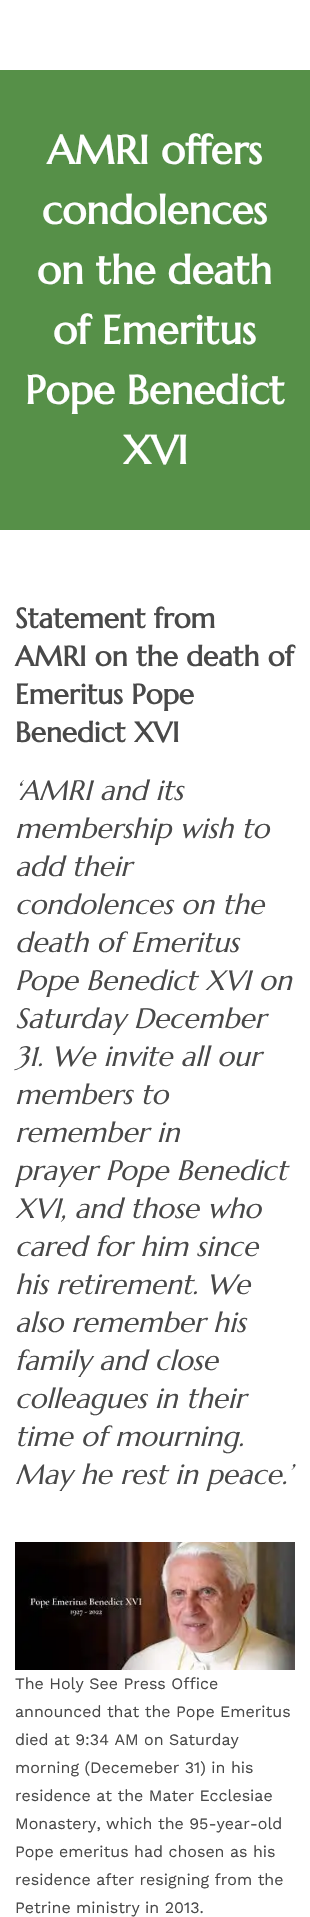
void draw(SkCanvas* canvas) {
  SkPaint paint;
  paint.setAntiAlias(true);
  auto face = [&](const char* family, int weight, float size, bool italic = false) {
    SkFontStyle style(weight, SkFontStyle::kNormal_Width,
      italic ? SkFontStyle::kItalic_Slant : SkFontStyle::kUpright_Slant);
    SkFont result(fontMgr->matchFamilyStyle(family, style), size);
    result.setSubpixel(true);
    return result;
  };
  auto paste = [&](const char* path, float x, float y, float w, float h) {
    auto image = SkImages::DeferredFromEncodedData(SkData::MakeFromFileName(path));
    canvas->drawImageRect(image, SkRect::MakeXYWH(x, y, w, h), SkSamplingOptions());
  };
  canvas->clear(0xffffffff);
  paint.setColor(0xff569048);
  canvas->drawRect(SkRect::MakeXYWH(0, 70, 310, 460), paint);
  paste("img/1.png", 15, 1542, 280, 128);
  auto f0 = face("Marcellus", 700, 40);
  paint.setColor(0xffffffff);
  {
    const struct { const char* s; float x, y; } items[] = {
      {"AMRI offers", 47, 164},
      {"condolences", 42, 224},
      {"on the death", 37, 284},
      {"of Emeritus", 53, 344},
      {"Pope Benedict", 25, 404},
      {"XVI", 123, 464},
    };
    for (auto [s, x, y] : items) {
      canvas->drawString(s, x, y, f0, paint);
    }
  }
  auto f1 = face("Marcellus", 700, 28);
  paint.setColor(0xff494949);
  {
    const struct { const char* s; float x, y; } items[] = {
      {"Statement from", 15, 628},
      {"AMRI on the death of", 15, 666},
      {"Emeritus Pope", 15, 704},
      {"Benedict XVI", 15, 742},
    };
    for (auto [s, x, y] : items) {
      canvas->drawString(s, x, y, f1, paint);
    }
  }
  auto f2 = face("Marcellus", 400, 28, true);
  {
    const struct { const char* s; float x, y; } items[] = {
      {"‘AMRI and its", 15, 800},
      {"membership wish to", 15, 838},
      {"add their", 15, 876},
      {"condolences on the", 15, 914},
      {"death of Emeritus", 15, 952},
      {"Pope Benedict XVI on", 15, 990},
      {"Saturday December", 15, 1028},
      {"31. We invite all our", 15, 1066},
      {"members to", 15, 1104},
      {"remember in", 15, 1142},
      {"prayer Pope Benedict", 15, 1180},
      {"XVI, and those who", 15, 1218},
      {"cared for him since", 15, 1256},
      {"his retirement. We", 15, 1294},
      {"also remember his", 15, 1332},
      {"family and close", 15, 1370},
      {"colleagues in their", 15, 1408},
      {"time of mourning.", 15, 1446},
      {"May he rest in peace.’", 15, 1484},
    };
    for (auto [s, x, y] : items) {
      canvas->drawString(s, x, y, f2, paint);
    }
  }
  auto f3 = face("Work Sans", 400, 16);
  {
    const struct { const char* s; float x, y; } items[] = {
      {"The Holy See Press Office", 15, 1689},
      {"announced that the Pope Emeritus", 15, 1717},
      {"died at 9:34 AM on Saturday", 15, 1745},
      {"morning (Decemeber 31) in his", 15, 1773},
      {"residence at the Mater Ecclesiae", 15, 1801},
      {"Monastery, which the 95-year-old", 15, 1829},
      {"Pope emeritus had chosen as his", 15, 1857},
      {"residence after resigning from the", 15, 1885},
      {"Petrine ministry in 2013.", 15, 1913},
    };
    for (auto [s, x, y] : items) {
      canvas->drawString(s, x, y, f3, paint);
    }
  }
}
